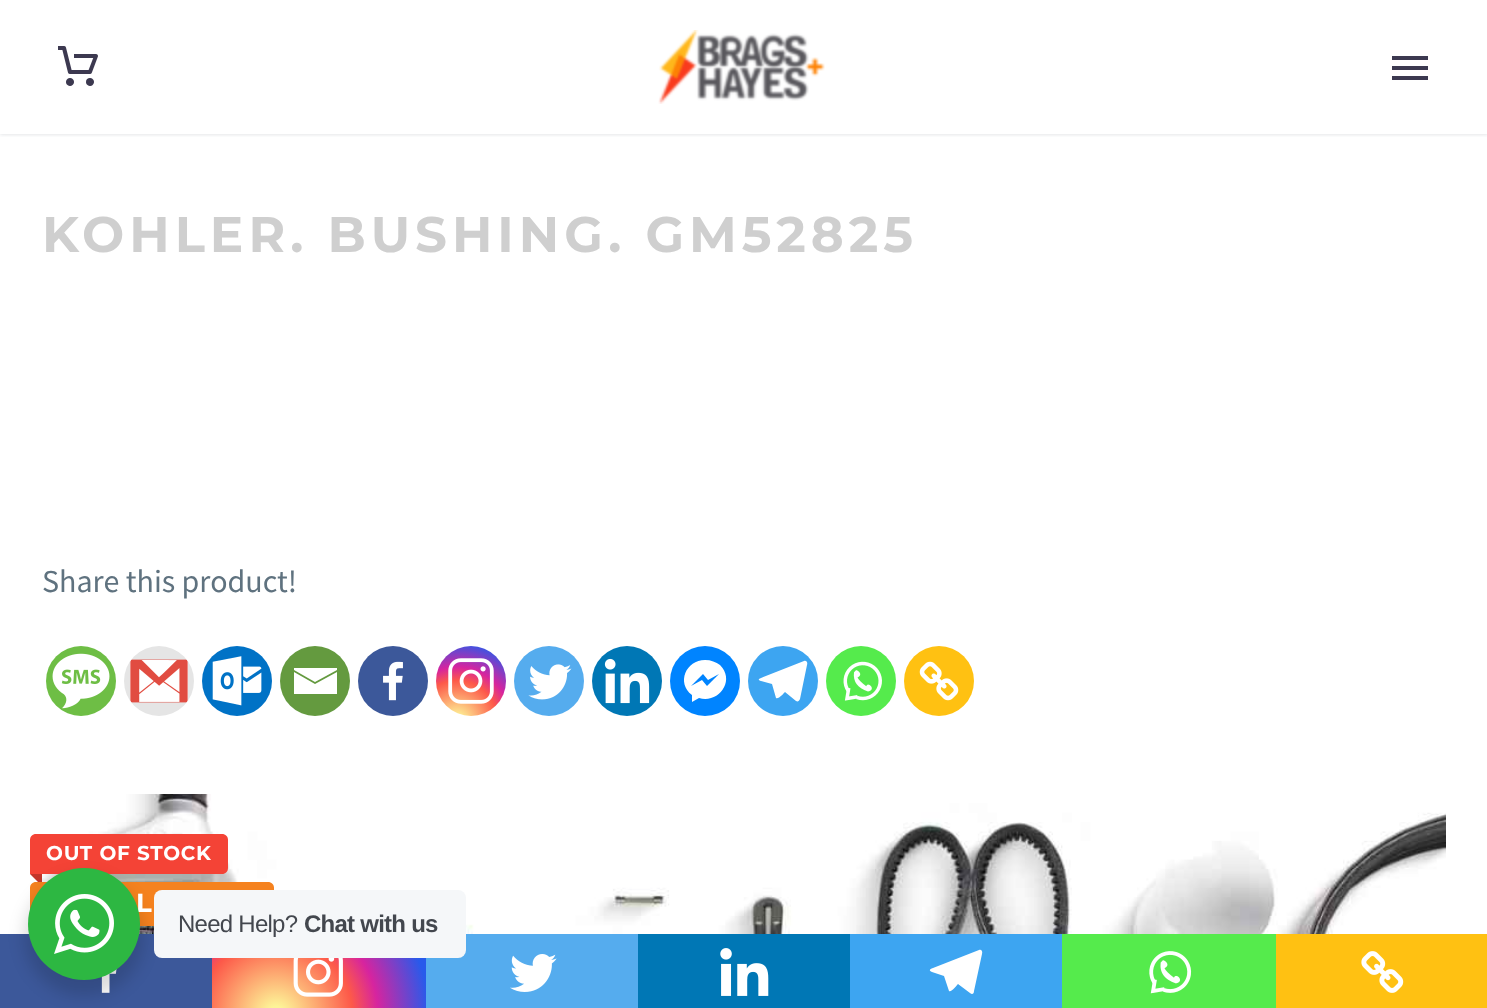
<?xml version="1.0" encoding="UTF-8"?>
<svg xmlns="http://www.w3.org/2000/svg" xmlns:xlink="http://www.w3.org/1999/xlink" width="1487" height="1008">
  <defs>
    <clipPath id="clip1"><rect x="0" y="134" width="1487" height="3" /></clipPath>
    <radialGradient id="g1" gradientUnits="userSpaceOnUse" cx="457" cy="721" r="90"><stop offset="0" stop-color="#fdf497" /><stop offset="0.05" stop-color="#fdf497" /><stop offset="0.45" stop-color="#fd5949" /><stop offset="0.6" stop-color="#d6249f" /><stop offset="0.9" stop-color="#285aeb" /></radialGradient>
    <radialGradient id="g2" gradientUnits="userSpaceOnUse" cx="276" cy="1015" r="170"><stop offset="0" stop-color="#fdf497" /><stop offset="0.05" stop-color="#fdf497" /><stop offset="0.45" stop-color="#fd5949" /><stop offset="0.6" stop-color="#d6249f" /><stop offset="0.9" stop-color="#285aeb" /></radialGradient>
  </defs>
  <rect width="100%" height="100%" fill="#ffffff" />
  <g clip-path="url(#clip1)">
    <rect width="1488" height="134" fill="#384554" fill-opacity="0.2" filter="blur(2px)" />
  </g>
  <image x="58" y="46" width="40" height="40" xlink:href="image1.png" />
  <image x="658" y="30" width="167" height="74" xlink:href="image2.png" />
  <rect x="1392" y="56" width="36" height="4" fill="#3c3950" />
  <rect x="1392" y="66" width="36" height="4" fill="#3c3950" />
  <rect x="1392" y="76" width="36" height="4" fill="#3c3950" />
  <circle cx="81" cy="681" r="35" fill="#6ebe45" />
  <image x="52" y="653" width="58" height="56" xlink:href="image3.png" />
  <circle cx="159" cy="681" r="35" fill="#e5e5e5" />
  <image x="130" y="659" width="58" height="44" xlink:href="image4.png" />
  <circle cx="237" cy="681" r="35" fill="#0072c6" />
  <image x="212" y="656" width="50" height="50" xlink:href="image5.png" />
  <circle cx="315" cy="681" r="35" fill="#649a3f" />
  <path d="M 292 668 h 45 v 2 l -22 12 l -21 -12 v -2 m 0 4 l 21 12 l 22 -12 v 22 h -43 v -22" fill="#ffffff" />
  <circle cx="393" cy="681" r="35" fill="#3c589a" />
  <image x="383" y="661" width="20" height="40" xlink:href="image6.png" />
  <circle cx="471" cy="681" r="35" fill="url(#g1)" />
  <image x="448" y="658" width="46" height="46" xlink:href="image7.png" />
  <circle cx="549" cy="681" r="35" fill="#55acee" />
  <image x="528" y="664" width="44" height="36" xlink:href="image8.png" />
  <circle cx="627" cy="681" r="35" fill="#0077b5" />
  <image x="604" y="658" width="46" height="46" xlink:href="image9.png" />
  <circle cx="705" cy="681" r="35" fill="#0084ff" />
  <path d="M 705 660 c -19 0 -29 23 -13 35 v 7 l 7 -4 c 19 6 37 -17 21 -33 c -4 -3 -9 -5 -15 -5 z m 2 26 l -5 -6 l -11 6 l 12 -12 l 5 6 l 11 -6 z" fill="#ffffff" />
  <circle cx="783" cy="681" r="35" fill="#3da5f1" />
  <path d="M 804 661 l -43 17 c -3 1 -3 2 0 3 l 11 3 l 4 14 c 2 2 8 -5 9 -6 l 11 9 c 2 1 3 0 4 -2 l 7 -34 c 1 -3 -1 -5 -3 -4 z" fill="#ffffff" />
  <circle cx="861" cy="681" r="35" fill="#55eb4c" />
  <image x="843" y="661" width="39" height="40" xlink:href="image10.png" />
  <circle cx="939" cy="681" r="35" fill="#ffc112" />
  <image x="919" y="661" width="40" height="40" xlink:href="image11.png" />
  <image x="42" y="794" width="1404" height="140" xlink:href="image12.png" />
  <path d="M 36 834 h 186 c 3.5 0 6 2.5 6 6 v 28 c 0 3.5 -2.5 6 -6 6 h -192 v -34 c 0 -3.5 2.5 -6 6 -6 z" fill="#f44336" />
  <path d="M 42 874 v 12 l -12 -12 z" fill="#c3362b" />
  <path d="M 36 882 h 232 c 3.5 0 6 2.5 6 6 v 32 c 0 3.5 -2.5 6 -6 6 h -238 v -38 c 0 -3.5 2.5 -6 6 -6 z" fill="#f5821f" />
  <rect y="934" width="212" height="74" fill="#3c589a" />
  <image x="101" y="969" width="16" height="24" xlink:href="image13.png" />
  <rect x="212" y="958" width="214" height="50" fill="url(#g2)" />
  <image x="293" y="958" width="50" height="39" xlink:href="image14.png" />
  <rect x="426" y="934" width="212" height="74" fill="#55acee" />
  <image x="510" y="954" width="47" height="38" xlink:href="image15.png" />
  <rect x="638" y="934" width="212" height="74" fill="#0077b5" />
  <image x="720" y="948" width="49" height="48" xlink:href="image16.png" />
  <rect x="850" y="934" width="212" height="74" fill="#3da5f1" />
  <path d="M 979 950 l -46 18 c -4 1 -4 3 -1 4 l 12 4 l 5 15 c 2 2 8 -6 9 -7 l 12 9 c 2 2 4 1 4 -2 l 8 -37 c 1 -3 -1 -5 -3 -4 z" fill="#ffffff" />
  <rect x="1062" y="934" width="214" height="74" fill="#55eb4c" />
  <image x="1149" y="951" width="43" height="43" xlink:href="image17.png" />
  <rect x="1276" y="934" width="211" height="74" fill="#ffc112" />
  <image x="1361" y="951" width="43" height="42" xlink:href="image18.png" />
  <rect x="24" y="876" width="120" height="120" rx="60" fill="#000000" fill-opacity="0.14" filter="blur(8px)" />
  <rect x="154" y="890" width="312" height="68" rx="8" fill="#f5f7f9" />
  <text x="42" y="252" style="font-family: Montserrat; font-size: 50px; font-weight: bold; letter-spacing: 5px; fill: #cfcfcf">KOHLER. BUSHING. GM52825</text>
  <text x="42" y="592" style="font-family: Source Sans Pro; font-size: 32px; fill: #5f727f">Share this product!</text>
  <text x="46" y="860" style="font-family: Montserrat; font-size: 20px; font-weight: bold; letter-spacing: 0.75px; fill: #ffffff">OUT OF STOCK</text>
  <text x="136" y="912" style="font-family: Montserrat; font-size: 26px; font-weight: bold; letter-spacing: 0.75px; fill: #ffffff">L</text>
  <circle cx="84" cy="924" r="56" fill="#2db742" />
  <image x="54" y="894" width="60" height="60" xlink:href="image19.png" />
  <text x="178" y="932" style="font-family: Liberation Sans; font-size: 24px; letter-spacing: -0.75px; fill: #43474e">Need Help?</text>
  <text x="304" y="932" style="font-family: Liberation Sans; font-size: 24px; font-weight: bold; letter-spacing: -0.75px; fill: #43474e">Chat with us</text>
</svg>
